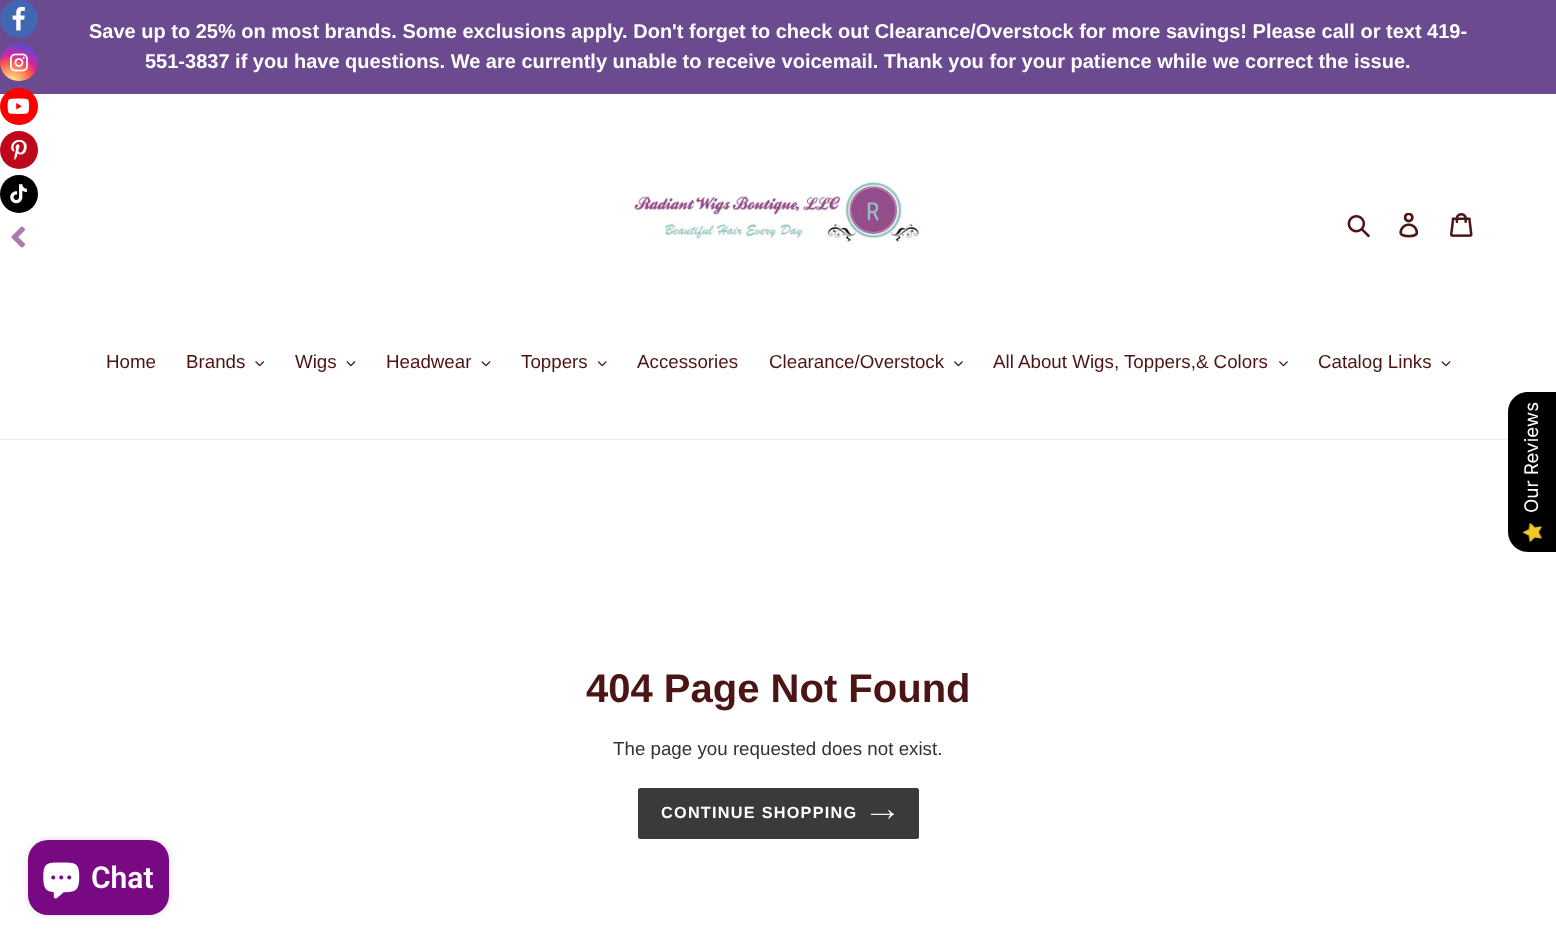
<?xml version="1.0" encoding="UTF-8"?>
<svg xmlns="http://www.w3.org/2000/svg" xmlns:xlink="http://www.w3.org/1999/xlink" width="1556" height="941">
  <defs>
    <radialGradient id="g1" gradientUnits="userSpaceOnUse" cx="11" cy="84" r="48"><stop offset="0" stop-color="#fdf497" /><stop offset="0.05" stop-color="#fdf497" /><stop offset="0.45" stop-color="#fd5949" /><stop offset="0.6" stop-color="#d6249f" /><stop offset="0.95" stop-color="#285aeb" /></radialGradient>
  </defs>
  <rect width="100%" height="100%" fill="#ffffff" />
  <rect width="1556" height="94" fill="#6b4a8f" />
  <circle cx="19" cy="19" r="19" fill="#4267b2" />
  <image x="12" y="6" width="13" height="25" xlink:href="image1.png" />
  <rect y="44" width="38" height="37" rx="18.5" fill="url(#g1)" />
  <image x="10" y="53" width="18" height="19" xlink:href="image2.png" />
  <rect y="88" width="38" height="37" rx="18.5" fill="#ff0000" />
  <image x="7" y="98" width="23" height="16" xlink:href="image3.png" />
  <circle cx="19" cy="150" r="19" fill="#bd081c" />
  <image x="11" y="139" width="16" height="21" xlink:href="image4.png" />
  <circle cx="19" cy="194" r="19" fill="#000000" />
  <image x="10" y="184" width="17" height="20" xlink:href="image5.png" />
  <image x="11" y="226" width="14" height="22" xlink:href="image6.png" />
  <image x="634" y="182" width="287" height="60" xlink:href="image7.png" />
  <image x="1347" y="215" width="23" height="23" xlink:href="image8.png" />
  <image x="1399" y="213" width="20" height="25" xlink:href="image9.png" />
  <image x="1450" y="213" width="23" height="24" xlink:href="image10.png" />
  <rect y="439" width="1508" height="1" fill="#ebebeb" />
  <image x="255" y="361" width="9" height="6" xlink:href="image11.png" />
  <image x="346" y="361" width="10" height="6" xlink:href="image12.png" />
  <image x="481" y="361" width="10" height="6" xlink:href="image12.png" />
  <image x="598" y="361" width="9" height="6" xlink:href="image13.png" />
  <image x="954" y="361" width="9" height="6" xlink:href="image14.png" />
  <image x="1279" y="361" width="9" height="6" xlink:href="image14.png" />
  <image x="1441" y="361" width="10" height="6" xlink:href="image12.png" />
  <path d="M 1508 532 v -120 c 0 -11 9 -20 20 -20 h 28 v 160 h -28 c -11 0 -20 -9 -20 -20 z" fill="#000000" />
  <image x="1522" y="523" width="20" height="19" xlink:href="image15.png" />
  <rect x="638" y="788" width="281" height="51" rx="2.5" fill="#3a3a3a" />
  <image x="870" y="809" width="24" height="10" xlink:href="image16.png" />
  <rect x="28" y="840" width="141" height="75" rx="20" fill="#000000" fill-opacity="0.15" filter="blur(3px)" />
  <rect x="28" y="840" width="141" height="75" rx="20" fill="#780983" />
  <image x="43" y="862" width="37" height="37" xlink:href="image17.png" />
  <text x="89" y="38" style="font-family: Liberation Sans; font-size: 20px; font-weight: bold; fill: #ffffff">Save up to 25% on most brands. Some exclusions apply. Don't forget to check out Clearance/Overstock for more savings! Please call or text 419-</text>
  <text x="145" y="68" style="font-family: Liberation Sans; font-size: 20px; font-weight: bold; fill: #ffffff">551-3837 if you have questions. We are currently unable to receive voicemail. Thank you for your patience while we correct the issue.</text>
  <text x="106" y="368" style="font-family: Liberation Sans; font-size: 18.75px; fill: #4c1515">Home</text>
  <text x="186" y="368" style="font-family: Liberation Sans; font-size: 18.75px; fill: #4c1515">Brands</text>
  <text x="295" y="368" style="font-family: Liberation Sans; font-size: 18.75px; fill: #4c1515">Wigs</text>
  <text x="386" y="368" style="font-family: Liberation Sans; font-size: 18.75px; fill: #4c1515">Headwear</text>
  <text x="521" y="368" style="font-family: Liberation Sans; font-size: 18.75px; fill: #4c1515">Toppers</text>
  <text x="637" y="368" style="font-family: Liberation Sans; font-size: 18.75px; fill: #4c1515">Accessories</text>
  <text x="769" y="368" style="font-family: Liberation Sans; font-size: 18.75px; fill: #4c1515">Clearance/Overstock</text>
  <text x="993" y="368" style="font-family: Liberation Sans; font-size: 18.75px; fill: #4c1515">All About Wigs, Toppers,&amp; Colors</text>
  <text x="1318" y="368" style="font-family: Liberation Sans; font-size: 18.75px; fill: #4c1515">Catalog Links</text>
  <text x="1538" y="513" transform="rotate(-90 1538 513)" style="font-family: Inter; font-size: 18.75px; fill: #ffffff">Our Reviews</text>
  <text x="586" y="702" style="font-family: Liberation Sans; font-size: 40px; font-weight: bold; fill: #4c1515">404 Page Not Found</text>
  <text x="613" y="755" style="font-family: Liberation Sans; font-size: 18.75px; fill: #333232">The page you requested does not exist.</text>
  <text x="661" y="818" style="font-family: Liberation Sans; font-size: 16.25px; font-weight: bold; letter-spacing: 1.25px; fill: #ffffff">CONTINUE SHOPPING</text>
  <text x="91" y="888" style="font-family: Roboto; font-size: 30px; font-weight: 600; fill: #ffffff">Chat</text>
</svg>
